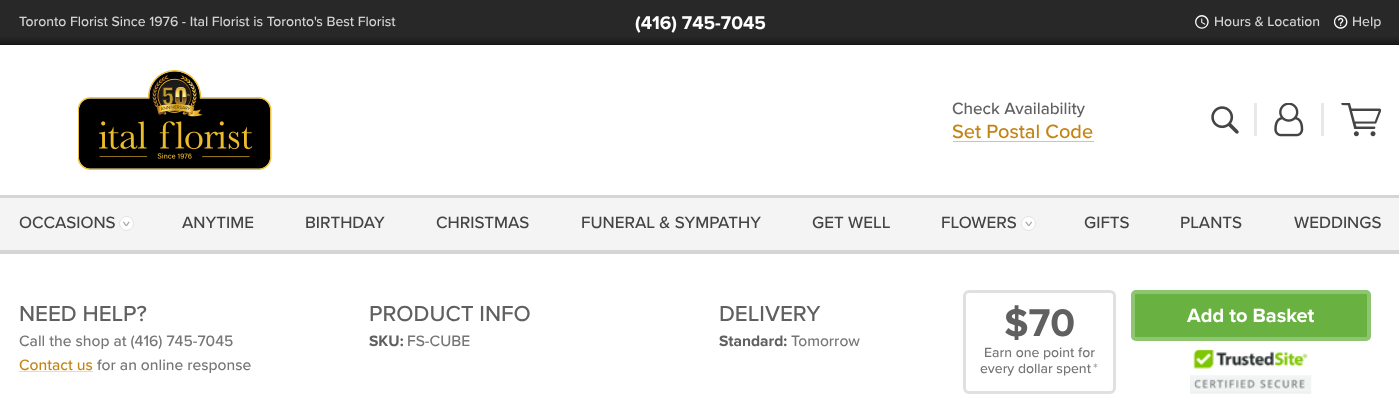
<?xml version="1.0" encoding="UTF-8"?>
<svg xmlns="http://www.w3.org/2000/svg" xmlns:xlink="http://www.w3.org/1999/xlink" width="1399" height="404">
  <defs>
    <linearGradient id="g1" gradientUnits="userSpaceOnUse" x1="700" y1="36" x2="700" y2="45"><stop offset="0" stop-color="#282828" /><stop offset="0.5" stop-color="#202020" /><stop offset="0.75" stop-color="#1c1c1c" /><stop offset="1" stop-color="#141414" /></linearGradient>
  </defs>
  <rect width="100%" height="100%" fill="#ffffff" />
  <rect width="1399" height="36" fill="#282828" />
  <image x="1195" y="15" width="14" height="14" xlink:href="image1.png" />
  <image x="1334" y="15" width="14" height="14" xlink:href="image2.png" />
  <rect y="36" width="1399" height="9" fill="url(#g1)" />
  <image x="78" y="70" width="194" height="100" xlink:href="image3.png" />
  <rect x="953" y="141" width="141" height="1" fill="#e2c28a" />
  <image x="1211" y="106" width="28" height="28" xlink:href="image4.png" />
  <rect x="1254" y="103" width="3" height="33" fill="#e8e8e8" />
  <image x="1274" y="103" width="30" height="34" xlink:href="image5.png" />
  <rect x="1321" y="103" width="3" height="33" fill="#e8e8e8" />
  <image x="1341" y="103" width="40" height="34" xlink:href="image6.png" />
  <rect y="195" width="1399" height="3" fill="#d5d5d5" />
  <rect y="198" width="1399" height="52" fill="#f4f4f4" />
  <circle cx="126.5" cy="223.5" r="7.5" fill="#ffffff" />
  <image x="123" y="221" width="7" height="5" xlink:href="image7.png" />
  <circle cx="126.5" cy="223.5" r="7" fill="none" stroke="#d5d5d5" stroke-opacity="0.75" />
  <circle cx="1028.5" cy="223.5" r="7.5" fill="#ffffff" />
  <image x="1025" y="221" width="7" height="5" xlink:href="image8.png" />
  <circle cx="1028.5" cy="223.5" r="7" fill="none" stroke="#d5d5d5" stroke-opacity="0.75" />
  <rect y="250" width="1399" height="4" fill="#d5d5d5" />
  <rect x="19" y="371" width="74" height="1" fill="#eddab9" />
  <rect x="964.5" y="291.5" width="150" height="101" rx="4.5" fill="none" stroke="#e0e0e0" stroke-width="3" />
  <rect x="1131" y="290" width="240" height="51" rx="5" fill="#69b241" />
  <rect x="1133" y="292" width="236" height="47" rx="3" fill="none" stroke="#ffffff" stroke-opacity="0.25" stroke-width="4" />
  <image x="1190" y="349" width="122" height="45" xlink:href="image9.png" />
  <text x="19" y="26" style="font-family: Proxima Nova; font-size: 14px; font-weight: 500; fill: #d4d4d4">Toronto Florist Since 1976 - Ital Florist is Toronto's Best Florist</text>
  <text x="635" y="29" style="font-family: Proxima Nova; font-size: 19px; font-weight: bold; fill: #ffffff">(416) 745-7045</text>
  <text x="1214" y="26" style="font-family: Proxima Nova; font-size: 14px; font-weight: 500; fill: #d4d4d4">Hours &amp; Location</text>
  <text x="1352" y="26" style="font-family: Proxima Nova; font-size: 14px; font-weight: 500; fill: #d4d4d4">Help</text>
  <text x="952" y="114" style="font-family: Proxima Nova; font-size: 17px; font-weight: 500; fill: #606060">Check Availability</text>
  <text x="952" y="138" style="font-family: Proxima Nova; font-size: 20px; font-weight: 500; fill: #c48414">Set Postal Code</text>
  <text x="19" y="228" style="font-family: Proxima Nova; font-size: 17px; font-weight: 500; fill: #444444">OCCASIONS</text>
  <text x="182" y="228" style="font-family: Proxima Nova; font-size: 17px; font-weight: 500; fill: #444444">ANYTIME</text>
  <text x="305" y="228" style="font-family: Proxima Nova; font-size: 17px; font-weight: 500; fill: #444444">BIRTHDAY</text>
  <text x="436" y="228" style="font-family: Proxima Nova; font-size: 17px; font-weight: 500; fill: #444444">CHRISTMAS</text>
  <text x="581" y="228" style="font-family: Proxima Nova; font-size: 17px; font-weight: 500; fill: #444444">FUNERAL &amp; SYMPATHY</text>
  <text x="812" y="228" style="font-family: Proxima Nova; font-size: 17px; font-weight: 500; fill: #444444">GET WELL</text>
  <text x="941" y="228" style="font-family: Proxima Nova; font-size: 17px; font-weight: 500; fill: #444444">FLOWERS</text>
  <text x="1084" y="228" style="font-family: Proxima Nova; font-size: 17px; font-weight: 500; fill: #444444">GIFTS</text>
  <text x="1180" y="228" style="font-family: Proxima Nova; font-size: 17px; font-weight: 500; fill: #444444">PLANTS</text>
  <text x="1294" y="228" style="font-family: Proxima Nova; font-size: 17px; font-weight: 500; fill: #444444">WEDDINGS</text>
  <text x="19" y="321" style="font-family: Proxima Nova; font-size: 22.5px; font-weight: 500; fill: #606060">NEED HELP?</text>
  <text x="19" y="346" style="font-family: Proxima Nova; font-size: 15.6px; font-weight: 500; fill: #767676">Call the shop at (416) 745-7045</text>
  <text x="19" y="370" style="font-family: Proxima Nova; font-size: 15.6px; font-weight: 500; fill: #c48414">Contact us</text>
  <text x="97" y="370" style="font-family: Proxima Nova; font-size: 15.6px; font-weight: 500; fill: #767676">for an online response</text>
  <text x="369" y="321" style="font-family: Proxima Nova; font-size: 22.5px; font-weight: 500; fill: #606060">PRODUCT INFO</text>
  <text x="369" y="346" style="font-family: Proxima Nova; font-size: 15.6px; font-weight: bold; fill: #606060">SKU:</text>
  <text x="407" y="346" style="font-family: Proxima Nova; font-size: 15.6px; font-weight: 500; fill: #767676">FS-CUBE</text>
  <text x="719" y="321" style="font-family: Proxima Nova; font-size: 22.5px; font-weight: 500; fill: #606060">DELIVERY</text>
  <text x="719" y="346" style="font-family: Proxima Nova; font-size: 15.6px; font-weight: bold; fill: #606060">Standard:</text>
  <text x="791" y="346" style="font-family: Proxima Nova; font-size: 15.6px; font-weight: 500; fill: #767676">Tomorrow</text>
  <text x="1004" y="336" style="font-family: Proxima Nova; font-size: 40px; font-weight: bold; fill: #606060">$70</text>
  <text x="984" y="357" style="font-family: Proxima Nova; font-size: 14px; font-weight: 500; fill: #767676">Earn one point for</text>
  <text x="980" y="373" style="font-family: Proxima Nova; font-size: 14px; font-weight: 500; fill: #767676">every dollar spent</text>
  <text x="1093" y="373" style="font-family: Proxima Nova; font-size: 14px; font-weight: 500; fill: #a0a0a0">*</text>
  <text x="1187" y="322" style="font-family: Proxima Nova; font-size: 20px; font-weight: bold; fill: #ffffff">Add to Basket</text>
</svg>
